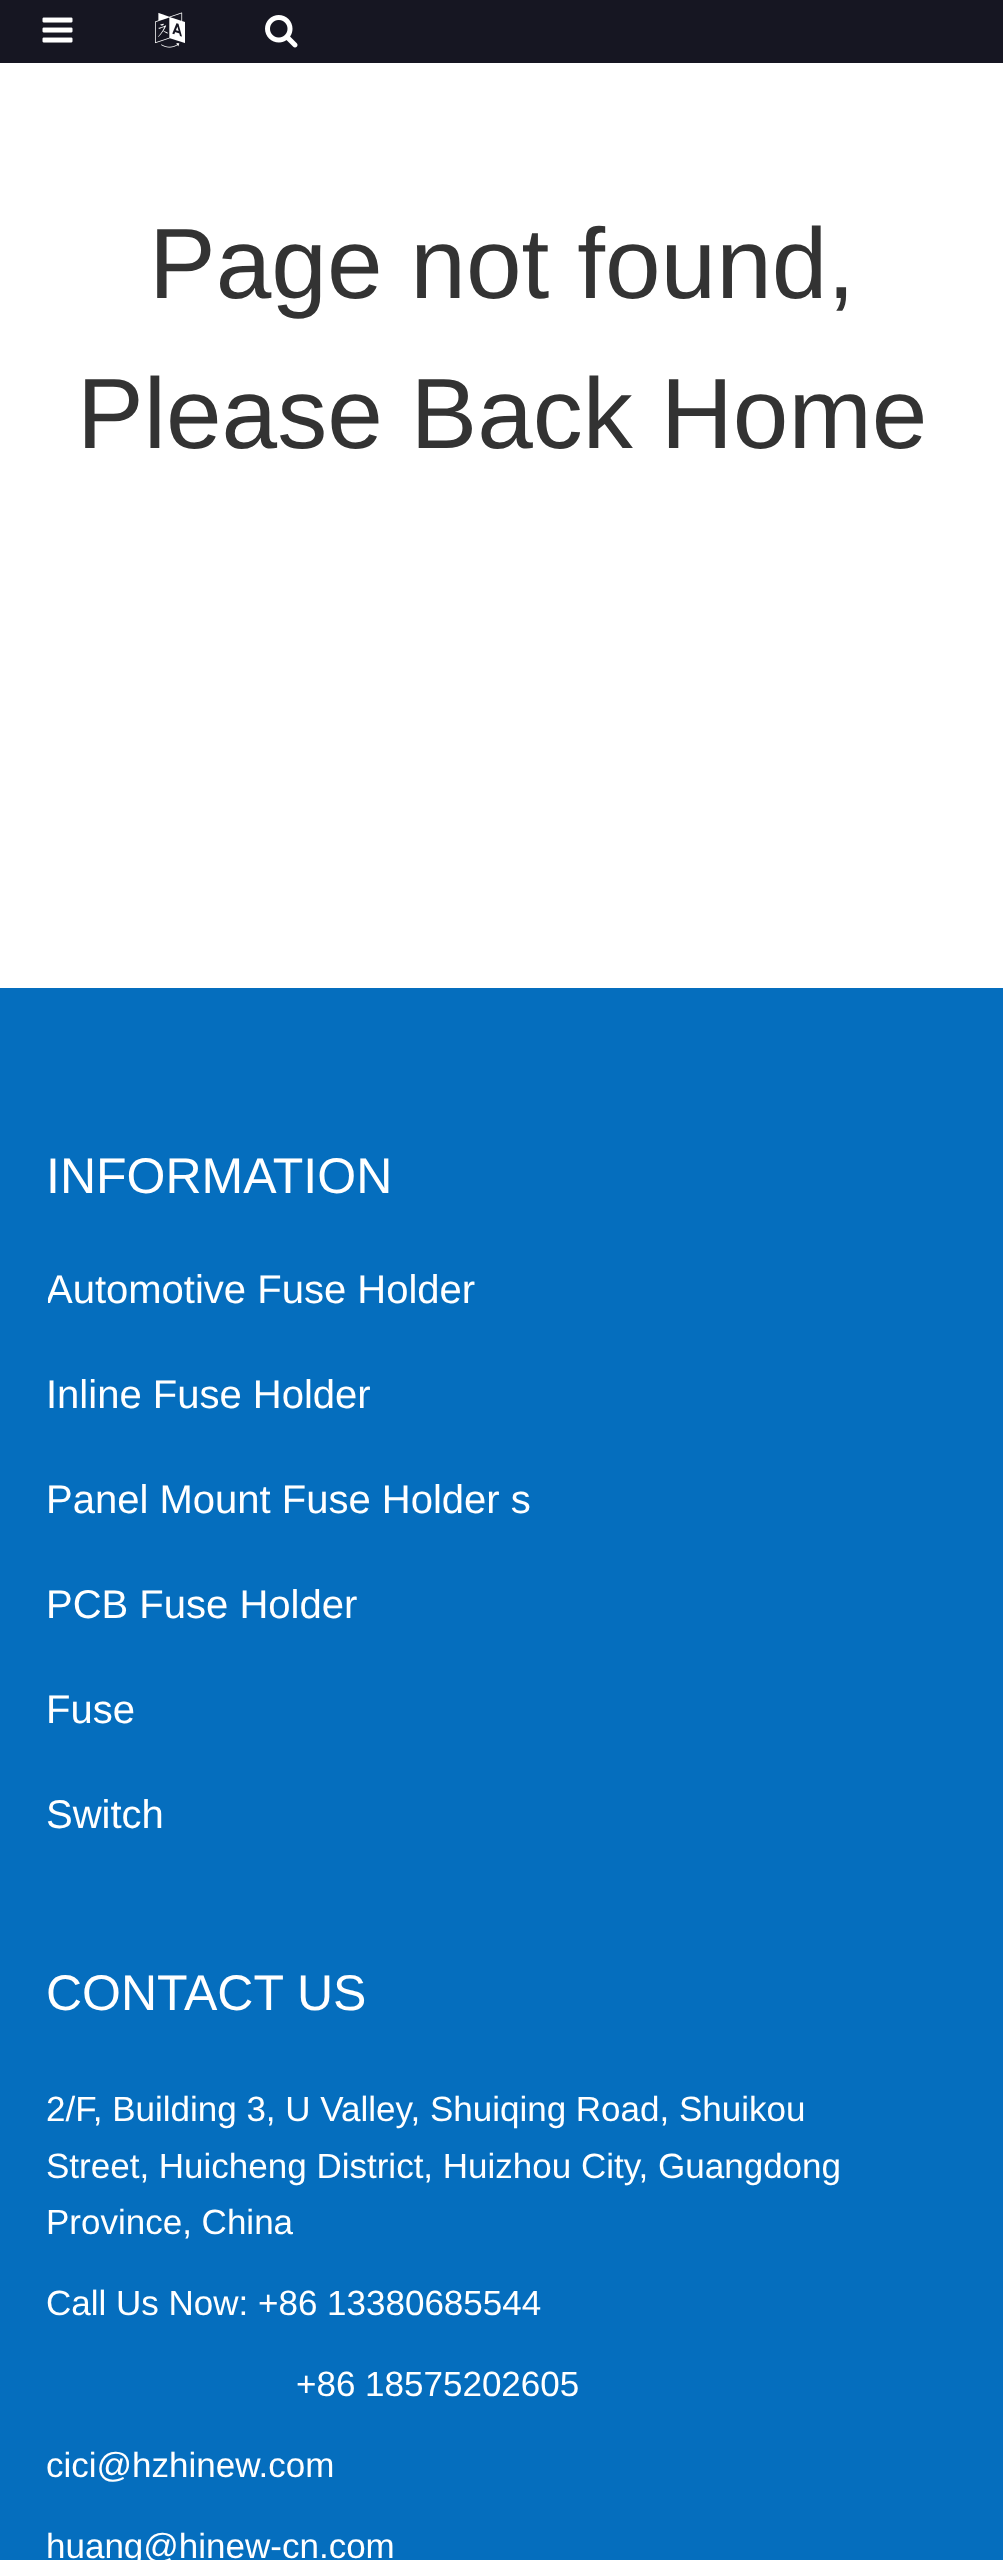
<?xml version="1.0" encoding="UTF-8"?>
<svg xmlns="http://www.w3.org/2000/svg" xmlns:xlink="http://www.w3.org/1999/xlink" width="1003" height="2560">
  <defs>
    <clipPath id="clip1"><rect x="48" y="1250" width="830" height="80" /></clipPath>
  </defs>
  <rect width="100%" height="100%" fill="#ffffff" />
  <rect width="1003" height="63" fill="#161622" />
  <image x="42" y="17" width="31" height="26" xlink:href="image1.png" />
  <image x="155" y="12" width="30" height="36" xlink:href="image2.png" />
  <image x="265" y="15" width="33" height="33" xlink:href="image3.png" />
  <rect y="988" width="1003" height="1572" fill="#056ebe" />
  <text x="149" y="298" style="font-family: Liberation Sans; font-size: 100px; fill: #333333">Page not found,</text>
  <text x="77" y="448" style="font-family: Liberation Sans; font-size: 100px; fill: #333333">Please Back Home</text>
  <text x="46" y="1193" style="font-family: Liberation Sans; font-size: 50px; fill: #ffffff">INFORMATION</text>
  <g clip-path="url(#clip1)">
    <text x="46" y="1303" style="font-family: Liberation Sans; font-size: 40px; fill: #ffffff">Automotive Fuse Holder</text>
  </g>
  <text x="46" y="1408" style="font-family: Liberation Sans; font-size: 40px; fill: #ffffff">Inline Fuse Holder</text>
  <text x="46" y="1513" style="font-family: Liberation Sans; font-size: 40px; fill: #ffffff">Panel Mount Fuse Holder s</text>
  <text x="46" y="1618" style="font-family: Liberation Sans; font-size: 40px; fill: #ffffff">PCB Fuse Holder</text>
  <text x="46" y="1723" style="font-family: Liberation Sans; font-size: 40px; fill: #ffffff">Fuse</text>
  <text x="46" y="1828" style="font-family: Liberation Sans; font-size: 40px; fill: #ffffff">Switch</text>
  <text x="46" y="2010" style="font-family: Liberation Sans; font-size: 50px; fill: #ffffff">CONTACT US</text>
  <text x="46" y="2121" style="font-family: Liberation Sans; font-size: 35px; fill: #ffffff">2/F, Building 3, U Valley, Shuiqing Road, Shuikou</text>
  <text x="46" y="2178" style="font-family: Liberation Sans; font-size: 35px; fill: #ffffff">Street, Huicheng District, Huizhou City, Guangdong</text>
  <text x="46" y="2234" style="font-family: Liberation Sans; font-size: 35px; fill: #ffffff">Province, China</text>
  <text x="46" y="2315" style="font-family: Liberation Sans; font-size: 35px; fill: #ffffff">Call Us Now: +86 13380685544</text>
  <text x="296" y="2396" style="font-family: Liberation Sans; font-size: 35px; fill: #ffffff">+86 18575202605</text>
  <text x="46" y="2477" style="font-family: Liberation Sans; font-size: 35px; fill: #ffffff">cici@hzhinew.com</text>
  <text x="46" y="2558" style="font-family: Liberation Sans; font-size: 35px; fill: #ffffff">huang@hinew-cn.com</text>
</svg>
